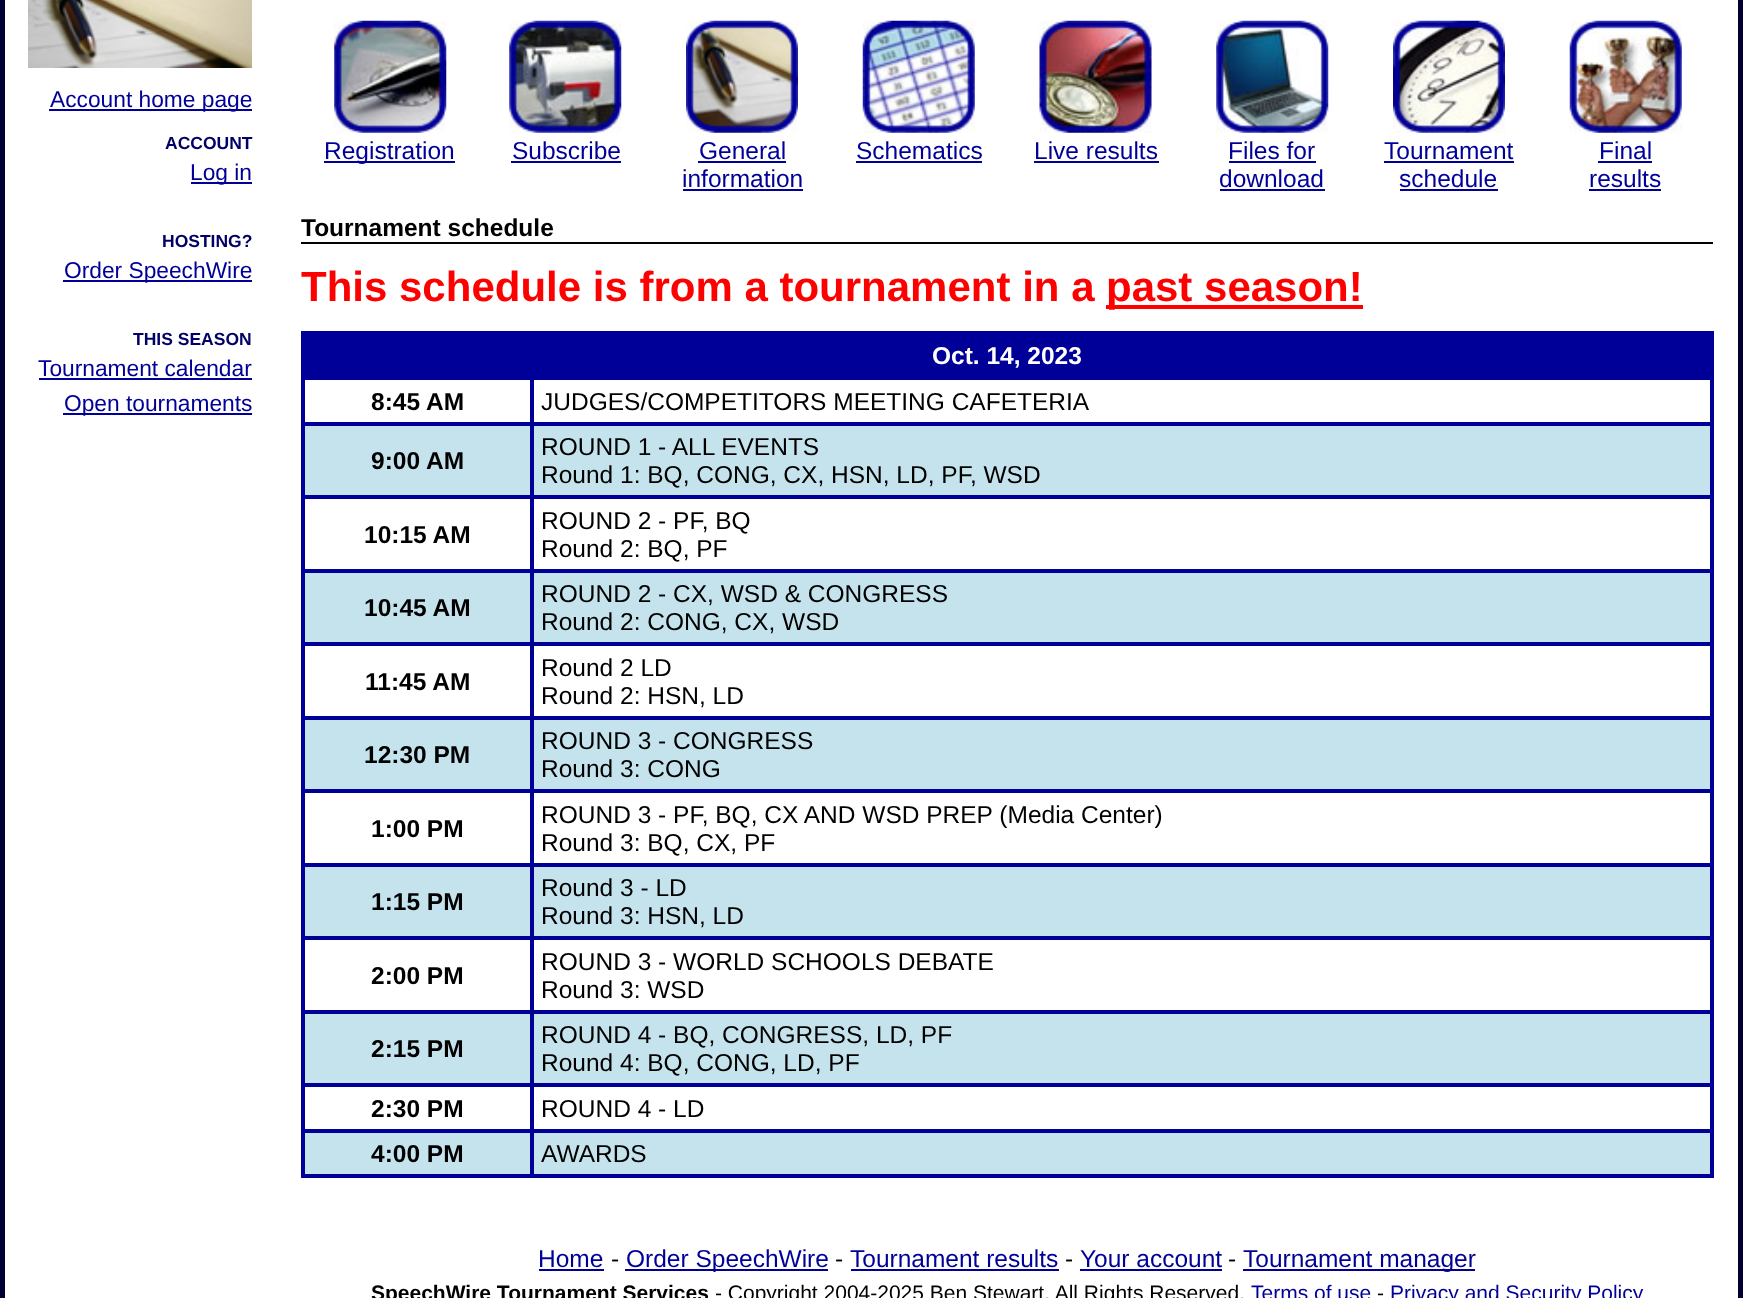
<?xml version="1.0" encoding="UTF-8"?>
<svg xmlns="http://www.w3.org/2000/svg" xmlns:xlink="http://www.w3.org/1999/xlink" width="1743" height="1298">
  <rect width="100%" height="100%" fill="#000033" />
  <rect x="5" width="1733" height="1298" fill="#ffffff" />
  <image x="28" y="0" width="224" height="68" xlink:href="image1.png" />
  <rect x="49" y="109" width="203" height="2" fill="#000099" />
  <rect x="191" y="182" width="61" height="2" fill="#000099" />
  <rect x="63" y="280" width="189" height="2" fill="#000099" />
  <rect x="39" y="378" width="213" height="2" fill="#000099" />
  <rect x="63" y="413" width="189" height="2" fill="#000099" />
  <image x="334" y="20" width="113" height="113" xlink:href="image2.png" />
  <image x="509" y="20" width="113" height="113" xlink:href="image3.png" />
  <image x="686" y="20" width="112" height="113" xlink:href="image4.png" />
  <image x="862" y="20" width="113" height="113" xlink:href="image5.png" />
  <image x="1039" y="20" width="113" height="113" xlink:href="image6.png" />
  <image x="1216" y="20" width="113" height="113" xlink:href="image7.png" />
  <image x="1393" y="20" width="112" height="113" xlink:href="image8.png" />
  <image x="1569" y="20" width="113" height="113" xlink:href="image9.png" />
  <rect x="324" y="161" width="131" height="2" fill="#000099" />
  <rect x="511" y="161" width="110" height="2" fill="#000099" />
  <rect x="698" y="161" width="88" height="2" fill="#000099" />
  <rect x="683" y="189" width="120" height="2" fill="#000099" />
  <rect x="856" y="161" width="126" height="2" fill="#000099" />
  <rect x="1034" y="161" width="125" height="2" fill="#000099" />
  <rect x="1229" y="161" width="87" height="2" fill="#000099" />
  <rect x="1220" y="189" width="105" height="2" fill="#000099" />
  <rect x="1384" y="161" width="130" height="2" fill="#000099" />
  <rect x="1400" y="189" width="98" height="2" fill="#000099" />
  <rect x="1598" y="161" width="54" height="2" fill="#000099" />
  <rect x="1589" y="189" width="72" height="2" fill="#000099" />
  <rect x="301" y="242" width="1412" height="2" fill="#000000" />
  <rect x="1106" y="305" width="257" height="4" fill="#ff0000" />
  <rect x="301" y="331" width="1412" height="4" fill="#000099" />
  <rect x="1710" y="331" width="4" height="847" fill="#000099" />
  <rect x="301" y="1174" width="1412" height="4" fill="#000099" />
  <rect x="301" y="331" width="4" height="847" fill="#000099" />
  <rect x="305" y="335" width="1405" height="41" fill="#000099" />
  <rect x="530" y="376" width="1183" height="4" fill="#000099" />
  <rect x="530" y="422" width="1183" height="4" fill="#000099" />
  <rect x="305" y="426" width="1405" height="69" fill="#c5e3ed" />
  <rect x="530" y="495" width="1183" height="4" fill="#000099" />
  <rect x="530" y="569" width="1183" height="4" fill="#000099" />
  <rect x="305" y="573" width="1405" height="69" fill="#c5e3ed" />
  <rect x="530" y="642" width="1183" height="4" fill="#000099" />
  <rect x="530" y="716" width="1183" height="4" fill="#000099" />
  <rect x="305" y="720" width="1405" height="69" fill="#c5e3ed" />
  <rect x="530" y="789" width="1183" height="4" fill="#000099" />
  <rect x="530" y="863" width="1183" height="4" fill="#000099" />
  <rect x="305" y="867" width="1405" height="69" fill="#c5e3ed" />
  <rect x="530" y="936" width="1183" height="4" fill="#000099" />
  <rect x="530" y="1010" width="1183" height="4" fill="#000099" />
  <rect x="305" y="1014" width="1405" height="69" fill="#c5e3ed" />
  <rect x="530" y="1083" width="1183" height="4" fill="#000099" />
  <rect x="530" y="1129" width="1183" height="4" fill="#000099" />
  <rect x="305" y="1133" width="1405" height="41" fill="#c5e3ed" />
  <rect x="530" y="1129" width="4" height="49" fill="#000099" />
  <rect x="301" y="1129" width="233" height="4" fill="#000099" />
  <rect x="530" y="1083" width="4" height="49" fill="#000099" />
  <rect x="301" y="1083" width="233" height="4" fill="#000099" />
  <rect x="530" y="1010" width="4" height="77" fill="#000099" />
  <rect x="301" y="1010" width="233" height="4" fill="#000099" />
  <rect x="530" y="936" width="4" height="77" fill="#000099" />
  <rect x="301" y="936" width="233" height="4" fill="#000099" />
  <rect x="530" y="863" width="4" height="77" fill="#000099" />
  <rect x="301" y="863" width="233" height="4" fill="#000099" />
  <rect x="530" y="789" width="4" height="77" fill="#000099" />
  <rect x="301" y="789" width="233" height="4" fill="#000099" />
  <rect x="530" y="716" width="4" height="77" fill="#000099" />
  <rect x="301" y="716" width="233" height="4" fill="#000099" />
  <rect x="530" y="642" width="4" height="77" fill="#000099" />
  <rect x="301" y="642" width="233" height="4" fill="#000099" />
  <rect x="530" y="569" width="4" height="77" fill="#000099" />
  <rect x="301" y="569" width="233" height="4" fill="#000099" />
  <rect x="530" y="495" width="4" height="77" fill="#000099" />
  <rect x="301" y="495" width="233" height="4" fill="#000099" />
  <rect x="530" y="422" width="4" height="77" fill="#000099" />
  <rect x="301" y="422" width="233" height="4" fill="#000099" />
  <rect x="530" y="376" width="4" height="49" fill="#000099" />
  <rect x="301" y="376" width="233" height="4" fill="#000099" />
  <rect x="539" y="1269" width="65" height="2" fill="#000099" />
  <rect x="625" y="1269" width="203" height="2" fill="#000099" />
  <rect x="851" y="1269" width="208" height="2" fill="#000099" />
  <rect x="1080" y="1269" width="142" height="2" fill="#000099" />
  <rect x="1243" y="1269" width="232" height="2" fill="#000099" />
  <text x="50" y="107" style="font-family: Liberation Sans; font-size: 22.75px; fill: #000099">Account home page</text>
  <text x="165" y="149" style="font-family: Liberation Sans; font-size: 17.5px; font-weight: bold; fill: #000066">ACCOUNT</text>
  <text x="190" y="180" style="font-family: Liberation Sans; font-size: 22.75px; fill: #000099">Log in</text>
  <text x="162" y="247" style="font-family: Liberation Sans; font-size: 17.5px; font-weight: bold; fill: #000066">HOSTING?</text>
  <text x="64" y="278" style="font-family: Liberation Sans; font-size: 22.75px; fill: #000099">Order SpeechWire</text>
  <text x="133" y="345" style="font-family: Liberation Sans; font-size: 17.5px; font-weight: bold; fill: #000066">THIS SEASON</text>
  <text x="38" y="376" style="font-family: Liberation Sans; font-size: 22.75px; fill: #000099">Tournament calendar</text>
  <text x="64" y="411" style="font-family: Liberation Sans; font-size: 22.75px; fill: #000099">Open tournaments</text>
  <text x="324" y="159" style="font-family: Liberation Sans; font-size: 24.5px; fill: #000099">Registration</text>
  <text x="512" y="159" style="font-family: Liberation Sans; font-size: 24.5px; fill: #000099">Subscribe</text>
  <text x="699" y="159" style="font-family: Liberation Sans; font-size: 24.5px; fill: #000099">General</text>
  <text x="682" y="187" style="font-family: Liberation Sans; font-size: 24.5px; fill: #000099">information</text>
  <text x="856" y="159" style="font-family: Liberation Sans; font-size: 24.5px; fill: #000099">Schematics</text>
  <text x="1034" y="159" style="font-family: Liberation Sans; font-size: 24.5px; fill: #000099">Live results</text>
  <text x="1228" y="159" style="font-family: Liberation Sans; font-size: 24.5px; fill: #000099">Files for</text>
  <text x="1219" y="187" style="font-family: Liberation Sans; font-size: 24.5px; fill: #000099">download</text>
  <text x="1384" y="159" style="font-family: Liberation Sans; font-size: 24.5px; fill: #000099">Tournament</text>
  <text x="1399" y="187" style="font-family: Liberation Sans; font-size: 24.5px; fill: #000099">schedule</text>
  <text x="1599" y="159" style="font-family: Liberation Sans; font-size: 24.5px; fill: #000099">Final</text>
  <text x="1589" y="187" style="font-family: Liberation Sans; font-size: 24.5px; fill: #000099">results</text>
  <text x="301" y="236" style="font-family: Liberation Sans; font-size: 24.5px; font-weight: bold; fill: #000000">Tournament schedule</text>
  <text x="301" y="301" style="font-family: Liberation Sans; font-size: 42px; font-weight: bold; fill: #ff0000">This schedule is from a tournament in a</text>
  <text x="1106" y="301" style="font-family: Liberation Sans; font-size: 42px; font-weight: bold; fill: #ff0000">past season!</text>
  <text x="932" y="364" style="font-family: Liberation Sans; font-size: 24.5px; font-weight: bold; fill: #ffffff">Oct. 14, 2023</text>
  <text x="371" y="410" style="font-family: Liberation Sans; font-size: 24.5px; font-weight: bold; fill: #000000">8:45 AM</text>
  <text x="541" y="410" style="font-family: Liberation Sans; font-size: 24.5px; fill: #000000">JUDGES/COMPETITORS MEETING CAFETERIA</text>
  <text x="371" y="469" style="font-family: Liberation Sans; font-size: 24.5px; font-weight: bold; fill: #000000">9:00 AM</text>
  <text x="541" y="455" style="font-family: Liberation Sans; font-size: 24.5px; fill: #000000">ROUND 1 - ALL EVENTS</text>
  <text x="541" y="483" style="font-family: Liberation Sans; font-size: 24.5px; fill: #000000">Round 1: BQ, CONG, CX, HSN, LD, PF, WSD</text>
  <text x="364" y="543" style="font-family: Liberation Sans; font-size: 24.5px; font-weight: bold; fill: #000000">10:15 AM</text>
  <text x="541" y="529" style="font-family: Liberation Sans; font-size: 24.5px; fill: #000000">ROUND 2 - PF, BQ</text>
  <text x="541" y="557" style="font-family: Liberation Sans; font-size: 24.5px; fill: #000000">Round 2: BQ, PF</text>
  <text x="364" y="616" style="font-family: Liberation Sans; font-size: 24.5px; font-weight: bold; fill: #000000">10:45 AM</text>
  <text x="541" y="602" style="font-family: Liberation Sans; font-size: 24.5px; fill: #000000">ROUND 2 - CX, WSD &amp; CONGRESS</text>
  <text x="541" y="630" style="font-family: Liberation Sans; font-size: 24.5px; fill: #000000">Round 2: CONG, CX, WSD</text>
  <text x="365" y="690" style="font-family: Liberation Sans; font-size: 24.5px; font-weight: bold; fill: #000000">11:45 AM</text>
  <text x="541" y="676" style="font-family: Liberation Sans; font-size: 24.5px; fill: #000000">Round 2 LD</text>
  <text x="541" y="704" style="font-family: Liberation Sans; font-size: 24.5px; fill: #000000">Round 2: HSN, LD</text>
  <text x="364" y="763" style="font-family: Liberation Sans; font-size: 24.5px; font-weight: bold; fill: #000000">12:30 PM</text>
  <text x="541" y="749" style="font-family: Liberation Sans; font-size: 24.5px; fill: #000000">ROUND 3 - CONGRESS</text>
  <text x="541" y="777" style="font-family: Liberation Sans; font-size: 24.5px; fill: #000000">Round 3: CONG</text>
  <text x="371" y="837" style="font-family: Liberation Sans; font-size: 24.5px; font-weight: bold; fill: #000000">1:00 PM</text>
  <text x="541" y="823" style="font-family: Liberation Sans; font-size: 24.5px; fill: #000000">ROUND 3 - PF, BQ, CX AND WSD PREP (Media Center)</text>
  <text x="541" y="851" style="font-family: Liberation Sans; font-size: 24.5px; fill: #000000">Round 3: BQ, CX, PF</text>
  <text x="371" y="910" style="font-family: Liberation Sans; font-size: 24.5px; font-weight: bold; fill: #000000">1:15 PM</text>
  <text x="541" y="896" style="font-family: Liberation Sans; font-size: 24.5px; fill: #000000">Round 3 - LD</text>
  <text x="541" y="924" style="font-family: Liberation Sans; font-size: 24.5px; fill: #000000">Round 3: HSN, LD</text>
  <text x="371" y="984" style="font-family: Liberation Sans; font-size: 24.5px; font-weight: bold; fill: #000000">2:00 PM</text>
  <text x="541" y="970" style="font-family: Liberation Sans; font-size: 24.5px; fill: #000000">ROUND 3 - WORLD SCHOOLS DEBATE</text>
  <text x="541" y="998" style="font-family: Liberation Sans; font-size: 24.5px; fill: #000000">Round 3: WSD</text>
  <text x="371" y="1057" style="font-family: Liberation Sans; font-size: 24.5px; font-weight: bold; fill: #000000">2:15 PM</text>
  <text x="541" y="1043" style="font-family: Liberation Sans; font-size: 24.5px; fill: #000000">ROUND 4 - BQ, CONGRESS, LD, PF</text>
  <text x="541" y="1071" style="font-family: Liberation Sans; font-size: 24.5px; fill: #000000">Round 4: BQ, CONG, LD, PF</text>
  <text x="371" y="1117" style="font-family: Liberation Sans; font-size: 24.5px; font-weight: bold; fill: #000000">2:30 PM</text>
  <text x="541" y="1117" style="font-family: Liberation Sans; font-size: 24.5px; fill: #000000">ROUND 4 - LD</text>
  <text x="371" y="1162" style="font-family: Liberation Sans; font-size: 24.5px; font-weight: bold; fill: #000000">4:00 PM</text>
  <text x="541" y="1162" style="font-family: Liberation Sans; font-size: 24.5px; fill: #000000">AWARDS</text>
  <text x="538" y="1267" style="font-family: Liberation Sans; font-size: 24.5px; fill: #000099">Home</text>
  <text x="611" y="1267" style="font-family: Liberation Sans; font-size: 24.5px; fill: #000000">-</text>
  <text x="626" y="1267" style="font-family: Liberation Sans; font-size: 24.5px; fill: #000099">Order SpeechWire</text>
  <text x="835" y="1267" style="font-family: Liberation Sans; font-size: 24.5px; fill: #000000">-</text>
  <text x="850" y="1267" style="font-family: Liberation Sans; font-size: 24.5px; fill: #000099">Tournament results</text>
  <text x="1065" y="1267" style="font-family: Liberation Sans; font-size: 24.5px; fill: #000000">-</text>
  <text x="1080" y="1267" style="font-family: Liberation Sans; font-size: 24.5px; fill: #000099">Your account</text>
  <text x="1228" y="1267" style="font-family: Liberation Sans; font-size: 24.5px; fill: #000000">-</text>
  <text x="1243" y="1267" style="font-family: Liberation Sans; font-size: 24.5px; fill: #000099">Tournament manager</text>
  <text x="371" y="1300" style="font-family: Liberation Sans; font-size: 21px; font-weight: bold; fill: #000000">SpeechWire Tournament Services</text>
  <text x="715" y="1300" style="font-family: Liberation Sans; font-size: 21px; fill: #000000">- Copyright 2004-2025 Ben Stewart. All Rights Reserved.</text>
  <text x="1251" y="1300" style="font-family: Liberation Sans; font-size: 21px; fill: #000099">Terms of use</text>
  <text x="1377" y="1300" style="font-family: Liberation Sans; font-size: 21px; fill: #000000">-</text>
  <text x="1390" y="1300" style="font-family: Liberation Sans; font-size: 21px; fill: #000099">Privacy and Security Policy</text>
</svg>
